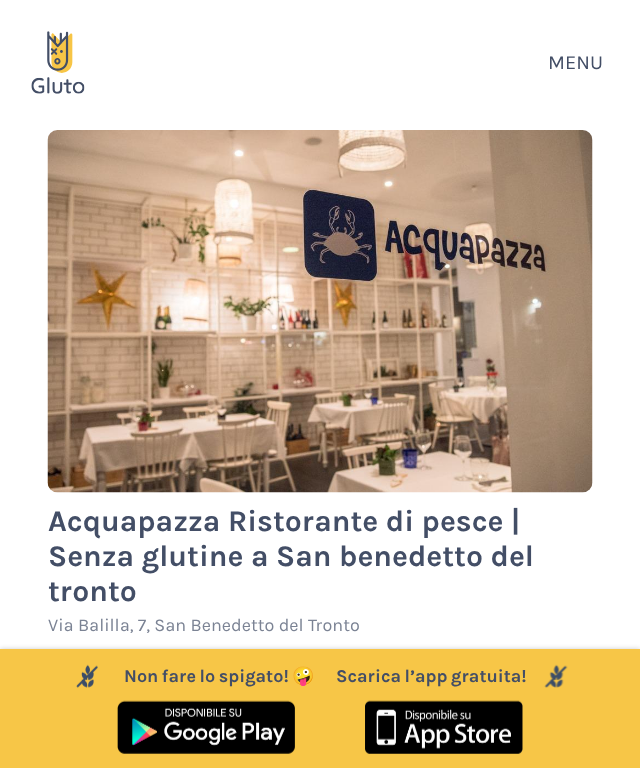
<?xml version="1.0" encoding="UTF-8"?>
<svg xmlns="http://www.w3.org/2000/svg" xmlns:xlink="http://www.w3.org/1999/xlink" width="640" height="768">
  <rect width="100%" height="100%" fill="#ffffff" />
  <image x="31" y="31" width="54" height="63" xlink:href="image1.png" />
  <image x="47" y="130" width="546" height="363" xlink:href="image2.png" />
  <rect y="649" width="640" height="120" fill="#000000" fill-opacity="0.2" filter="blur(2.5px)" />
  <rect y="649" width="640" height="119" fill="#f7c647" />
  <image x="76" y="664" width="22" height="24" xlink:href="image3.png" />
  <image x="544" y="664" width="24" height="24" xlink:href="image4.png" />
  <image x="117" y="700" width="178" height="54" xlink:href="image5.png" />
  <image x="365" y="700" width="158" height="54" xlink:href="image6.png" />
  <text x="548" y="69" style="font-family: Karla; font-size: 20px; fill: #434e66">MENU</text>
  <text x="48" y="531" style="font-family: Karla; font-size: 30px; font-weight: bold; fill: #434e66">Acquapazza Ristorante di pesce |</text>
  <text x="48" y="566" style="font-family: Karla; font-size: 30px; font-weight: bold; fill: #434e66">Senza glutine a San benedetto del</text>
  <text x="48" y="601" style="font-family: Karla; font-size: 30px; font-weight: bold; fill: #434e66">tronto</text>
  <text x="48" y="631" style="font-family: Karla; font-size: 18px; fill: #7b8394">Via Balilla, 7, San Benedetto del Tronto</text>
  <text x="124" y="682" word-spacing="-1" style="font-family: Karla; font-size: 18px; font-weight: bold; fill: #434e66">Non fare lo spigato!</text>
  <text x="292" y="682" style="font-family: Noto Color Emoji; font-size: 18px; fill: #434e66">🤪‍</text>
  <text x="336" y="682" word-spacing="-1" style="font-family: Karla; font-size: 18px; font-weight: bold; fill: #434e66">Scarica l’app gratuita!</text>
</svg>
